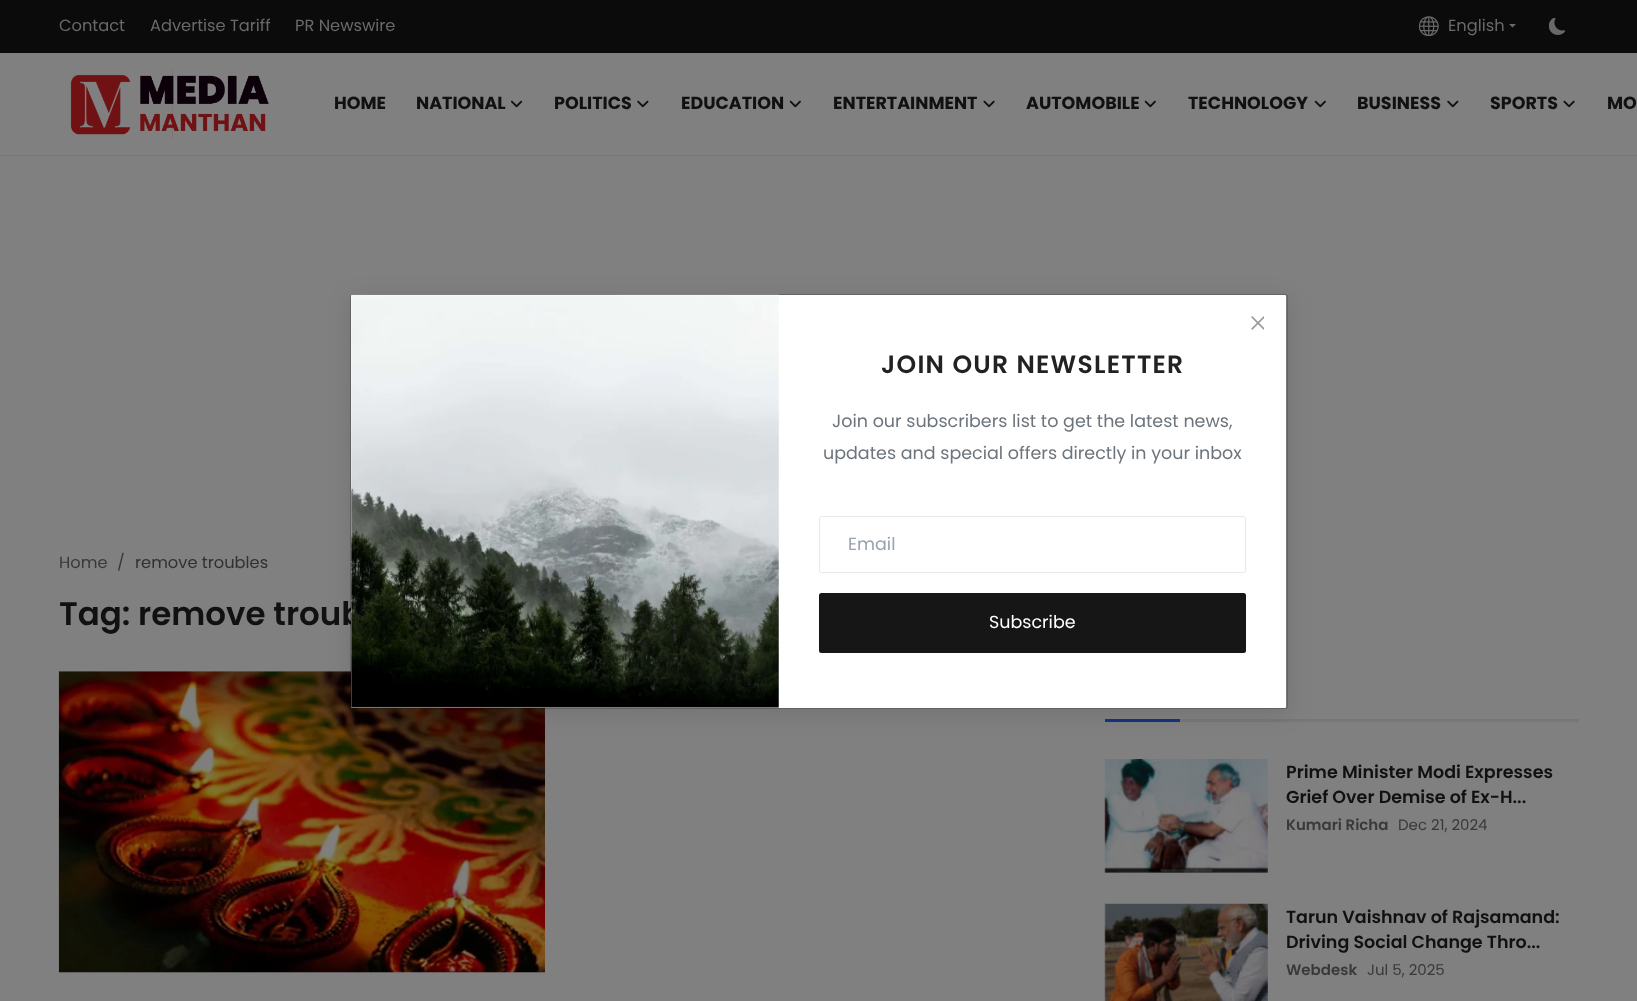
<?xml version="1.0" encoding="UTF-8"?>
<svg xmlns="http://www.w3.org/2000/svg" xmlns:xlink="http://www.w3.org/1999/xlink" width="1637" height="1001">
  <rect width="100%" height="100%" fill="#808080" />
  <rect width="1637" height="53" fill="#0b0b0b" />
  <image x="1419" y="16" width="20" height="20" xlink:href="image1.png" />
  <path d="M 1509 24 h 7 l -3.5 3.5 z" fill="#696969" />
  <image x="1549" y="18" width="17" height="17" xlink:href="image2.png" />
  <rect y="155" width="1637" height="1" fill="#767676" />
  <image x="70" y="68" width="199" height="71" xlink:href="image3.png" />
  <image x="511" y="100" width="12" height="8" xlink:href="image4.png" />
  <image x="637" y="100" width="12" height="8" xlink:href="image5.png" />
  <image x="789" y="100" width="12" height="8" xlink:href="image6.png" />
  <image x="983" y="100" width="12" height="8" xlink:href="image7.png" />
  <image x="1144" y="100" width="12" height="8" xlink:href="image6.png" />
  <image x="1314" y="100" width="12" height="8" xlink:href="image6.png" />
  <image x="1447" y="100" width="12" height="8" xlink:href="image5.png" />
  <image x="1563" y="100" width="12" height="8" xlink:href="image7.png" />
  <rect x="59" y="671" width="486" height="302" fill="#7d7d7d" />
  <image x="58" y="671" width="487" height="302" xlink:href="image10.png" />
  <rect x="1180" y="719" width="399" height="3" fill="#777777" />
  <rect x="1105" y="719" width="75" height="3" fill="#17337f" />
  <rect x="350" y="299" width="938" height="415" rx="2.5" fill="#000000" fill-opacity="0.1" filter="blur(12.5px)" />
  <rect x="1105" y="759" width="163" height="114" fill="#7d7d7d" />
  <image x="1104" y="759" width="164" height="114" xlink:href="image11.png" />
  <image x="1104" y="903" width="164" height="98" xlink:href="image12.png" />
  <text x="59" y="31" style="font-family: Poppins; font-size: 16.25px; fill: #696969">Contact</text>
  <text x="150" y="31" style="font-family: Poppins; font-size: 16.25px; fill: #696969">Advertise Tariff</text>
  <text x="295" y="31" style="font-family: Poppins; font-size: 16.25px; fill: #696969">PR Newswire</text>
  <text x="1448" y="31" style="font-family: Poppins; font-size: 16.25px; fill: #696969">English</text>
  <text x="334" y="109" style="font-family: Poppins; font-size: 17.5px; font-weight: bold; fill: #111111">HOME</text>
  <text x="416" y="109" style="font-family: Poppins; font-size: 17.5px; font-weight: bold; fill: #111111">NATIONAL</text>
  <text x="554" y="109" style="font-family: Poppins; font-size: 17.5px; font-weight: bold; fill: #111111">POLITICS</text>
  <text x="681" y="109" style="font-family: Poppins; font-size: 17.5px; font-weight: bold; fill: #111111">EDUCATION</text>
  <text x="833" y="109" style="font-family: Poppins; font-size: 17.5px; font-weight: bold; fill: #111111">ENTERTAINMENT</text>
  <text x="1026" y="109" style="font-family: Poppins; font-size: 17.5px; font-weight: bold; fill: #111111">AUTOMOBILE</text>
  <text x="1188" y="109" style="font-family: Poppins; font-size: 17.5px; font-weight: bold; fill: #111111">TECHNOLOGY</text>
  <text x="1357" y="109" style="font-family: Poppins; font-size: 17.5px; font-weight: bold; fill: #111111">BUSINESS</text>
  <text x="1490" y="109" style="font-family: Poppins; font-size: 17.5px; font-weight: bold; fill: #111111">SPORTS</text>
  <text x="1607" y="109" style="font-family: Poppins; font-size: 17.5px; font-weight: bold; fill: #111111">MO</text>
  <text x="59" y="568" style="font-family: Poppins; font-size: 16.25px; fill: #393939">Home</text>
  <text x="117" y="568" style="font-family: Poppins; font-size: 16.25px; fill: #363b3f">/</text>
  <text x="135" y="568" style="font-family: Poppins; font-size: 16.25px; fill: #303030">remove troubles</text>
  <text x="59" y="625" style="font-family: Poppins; font-size: 32.5px; font-weight: 600; fill: #111111">Tag: remove troub</text>
  <rect x="351" y="295" width="935" height="413" rx="1" fill="#ffffff" />
  <rect x="350.5" y="294.5" width="937" height="414" rx="2" fill="none" stroke="#000000" stroke-opacity="0.18" />
  <image x="1251" y="316" width="13" height="14" xlink:href="image9.png" />
  <rect x="819" y="593" width="427" height="60" rx="2.5" fill="#161616" />
  <text x="989" y="628" style="font-family: Poppins; font-size: 17.5px; fill: #ffffff">Subscribe</text>
  <rect x="819.5" y="516.5" width="426" height="56" rx="2" fill="none" stroke="#e6e8eb" />
  <text x="848" y="550" style="font-family: Poppins; font-size: 17.5px; fill: #9aa2aa">Email</text>
  <text x="823" y="459" style="font-family: Poppins; font-size: 17.5px; fill: #6c757d">updates and special offers directly in your inbox</text>
  <text x="832" y="427" style="font-family: Poppins; font-size: 17.5px; fill: #6c757d">Join our subscribers list to get the latest news,</text>
  <text x="881" y="373" style="font-family: Poppins; font-size: 25px; font-weight: 600; letter-spacing: 1.25px; fill: #222222">JOIN OUR NEWSLETTER</text>
  <image x="351" y="294" width="428" height="414" xlink:href="image8.png" />
  <text x="1286" y="778" style="font-family: Poppins; font-size: 17.5px; font-weight: 600; fill: #111111">Prime Minister Modi Expresses</text>
  <text x="1286" y="803" style="font-family: Poppins; font-size: 17.5px; font-weight: 600; fill: #111111">Grief Over Demise of Ex-H...</text>
  <text x="1286" y="830" style="font-family: Poppins; font-size: 15px; font-weight: 600; fill: #393939">Kumari Richa</text>
  <text x="1398" y="830" style="font-family: Poppins; font-size: 15px; fill: #393939">Dec 21, 2024</text>
  <text x="1286" y="923" style="font-family: Poppins; font-size: 17.5px; font-weight: 600; fill: #111111">Tarun Vaishnav of Rajsamand:</text>
  <text x="1286" y="948" style="font-family: Poppins; font-size: 17.5px; font-weight: 600; fill: #111111">Driving Social Change Thro...</text>
  <text x="1286" y="975" style="font-family: Poppins; font-size: 15px; font-weight: 600; fill: #393939">Webdesk</text>
  <text x="1367" y="975" style="font-family: Poppins; font-size: 15px; fill: #393939">Jul 5, 2025</text>
</svg>
